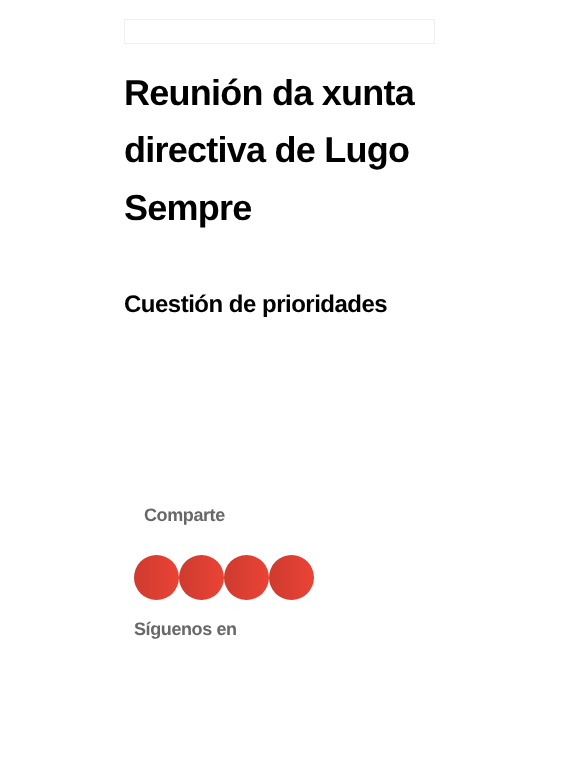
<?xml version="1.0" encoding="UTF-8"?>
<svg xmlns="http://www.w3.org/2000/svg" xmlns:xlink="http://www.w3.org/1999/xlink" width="572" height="772">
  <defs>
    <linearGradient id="g1" gradientUnits="userSpaceOnUse" x1="134" y1="578" x2="179" y2="578"><stop offset="0" stop-color="#000000" stop-opacity="0.12" /><stop offset="1" stop-color="#000000" stop-opacity="0" /></linearGradient>
    <linearGradient id="g2" gradientUnits="userSpaceOnUse" x1="179" y1="578" x2="224" y2="578"><stop offset="0" stop-color="#000000" stop-opacity="0.12" /><stop offset="1" stop-color="#000000" stop-opacity="0" /></linearGradient>
    <linearGradient id="g3" gradientUnits="userSpaceOnUse" x1="224" y1="578" x2="269" y2="578"><stop offset="0" stop-color="#000000" stop-opacity="0.12" /><stop offset="1" stop-color="#000000" stop-opacity="0" /></linearGradient>
    <linearGradient id="g4" gradientUnits="userSpaceOnUse" x1="269" y1="578" x2="314" y2="578"><stop offset="0" stop-color="#000000" stop-opacity="0.12" /><stop offset="1" stop-color="#000000" stop-opacity="0" /></linearGradient>
  </defs>
  <rect width="100%" height="100%" fill="#ffffff" />
  <rect x="124.5" y="19.5" width="310" height="24" fill="none" stroke="#f0f0f0" />
  <circle cx="156.5" cy="577.5" r="22.5" fill="#ea4335" />
  <circle cx="156.5" cy="577.5" r="22.5" fill="url(#g1)" />
  <circle cx="201.5" cy="577.5" r="22.5" fill="#ea4335" />
  <circle cx="201.5" cy="577.5" r="22.5" fill="url(#g2)" />
  <circle cx="246.5" cy="577.5" r="22.5" fill="#ea4335" />
  <circle cx="246.5" cy="577.5" r="22.5" fill="url(#g3)" />
  <circle cx="291.5" cy="577.5" r="22.5" fill="#ea4335" />
  <circle cx="291.5" cy="577.5" r="22.5" fill="url(#g4)" />
  <text x="124" y="105" style="font-family: Liberation Sans; font-size: 36px; font-weight: bold; letter-spacing: -0.75px; fill: #000000">Reunión da xunta</text>
  <text x="124" y="162" style="font-family: Liberation Sans; font-size: 36px; font-weight: bold; letter-spacing: -0.75px; fill: #000000">directiva de Lugo</text>
  <text x="124" y="220" style="font-family: Liberation Sans; font-size: 36px; font-weight: bold; letter-spacing: -0.75px; fill: #000000">Sempre</text>
  <text x="124" y="312" style="font-family: Liberation Sans; font-size: 24px; font-weight: bold; letter-spacing: -0.5px; fill: #000000">Cuestión de prioridades</text>
  <text x="144" y="521" style="font-family: Liberation Sans; font-size: 18px; font-weight: bold; letter-spacing: -0.4px; fill: #686868">Comparte</text>
  <text x="134" y="635" style="font-family: Liberation Sans; font-size: 18px; font-weight: bold; letter-spacing: -0.4px; fill: #686868">Síguenos en</text>
</svg>
